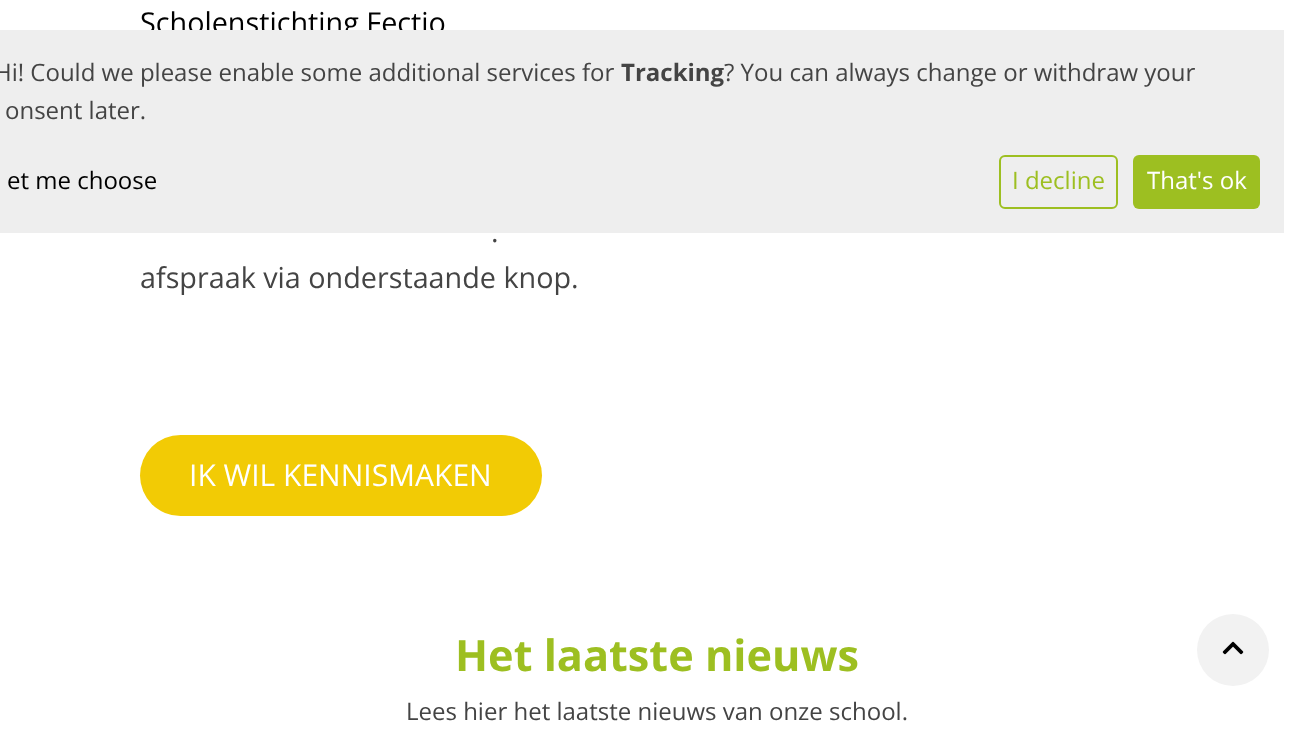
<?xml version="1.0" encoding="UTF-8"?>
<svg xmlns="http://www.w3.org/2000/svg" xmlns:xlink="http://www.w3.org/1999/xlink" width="1313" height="730">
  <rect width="100%" height="100%" fill="#ffffff" />
  <rect x="140" y="435" width="402" height="81" rx="40.5" fill="#f2cb05" />
  <circle cx="1233" cy="650" r="36" fill="#f2f2f2" />
  <image x="1222" y="641" width="22" height="14" xlink:href="image1.png" />
  <text x="140" y="33" style="font-family: Open Sans; font-size: 28.75px; fill: #000000">Scholenstichting Fectio</text>
  <text x="491" y="242" style="font-family: Open Sans; font-size: 28.75px; fill: #444444">.</text>
  <text x="140" y="288" style="font-family: Open Sans; font-size: 28.75px; fill: #444444">afspraak via onderstaande knop.</text>
  <text x="189" y="486" style="font-family: Open Sans; font-size: 30px; fill: #ffffff">IK WIL KENNISMAKEN</text>
  <text x="455" y="671" style="font-family: Open Sans; font-size: 43.25px; font-weight: bold; fill: #9dbf21">Het laatste nieuws</text>
  <text x="406" y="720" style="font-family: Open Sans; font-size: 24px; fill: #444444">Lees hier het laatste nieuws van onze school.</text>
  <rect y="30" width="1284" height="203" fill="#eeeeee" />
  <text x="-6" y="81" style="font-family: Open Sans; font-size: 24px; fill: #444444">Hi! Could we please enable some additional services for</text>
  <text x="621" y="81" style="font-family: Open Sans; font-size: 24px; font-weight: bold; fill: #444444">Tracking</text>
  <text x="724" y="81" style="font-family: Open Sans; font-size: 24px; fill: #444444">? You can always change or withdraw your</text>
  <text x="5" y="119" style="font-family: Open Sans; font-size: 24px; fill: #444444">onsent later.</text>
  <text x="7" y="189" style="font-family: Open Sans; font-size: 24px; fill: #000000">et me choose</text>
  <rect x="1000" y="156" width="117" height="52" rx="5" fill="none" stroke="#9dbf21" stroke-width="2" />
  <text x="1012" y="189" style="font-family: Open Sans; font-size: 24px; fill: #9dbf21">I decline</text>
  <rect x="1133" y="155" width="127" height="54" rx="6" fill="#9dbf21" />
  <text x="1147" y="189" style="font-family: Open Sans; font-size: 24px; fill: #ffffff">That's ok</text>
</svg>
